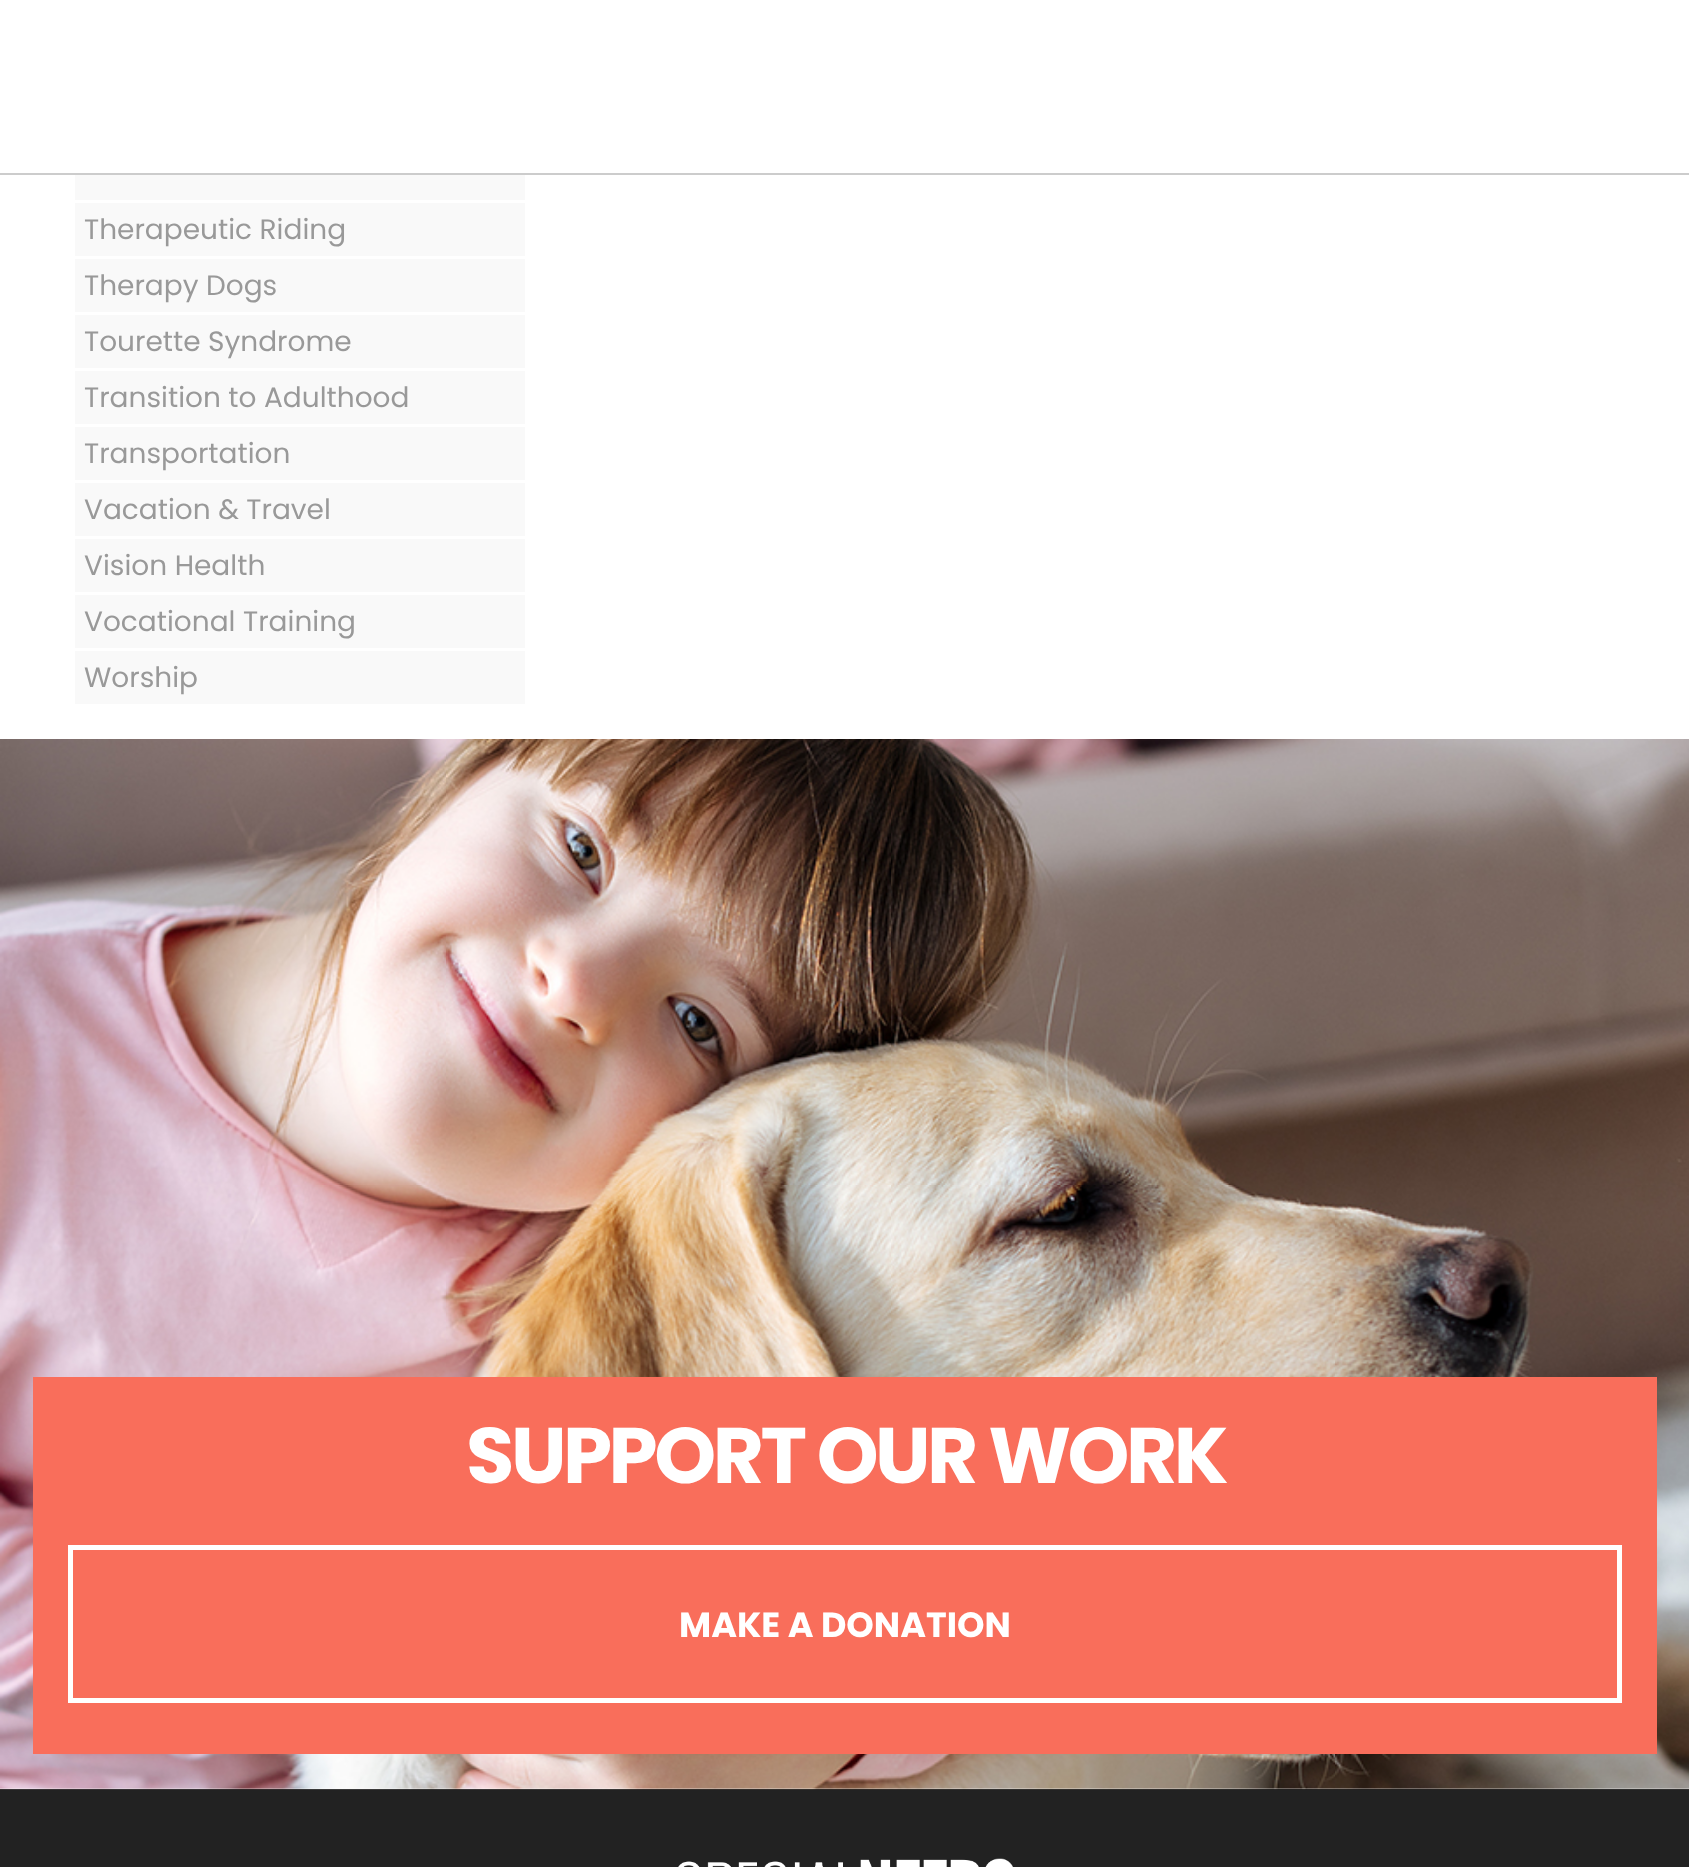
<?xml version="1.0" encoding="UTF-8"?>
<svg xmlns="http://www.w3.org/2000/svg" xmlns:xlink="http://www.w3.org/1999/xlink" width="1689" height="1867">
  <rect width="100%" height="100%" fill="#ffffff" />
  <rect y="173" width="1689" height="2" fill="#cccccc" />
  <rect x="75" y="175" width="450" height="25" fill="#f9f9f9" />
  <rect x="75" y="203" width="450" height="53" fill="#f9f9f9" />
  <rect x="75" y="259" width="450" height="53" fill="#f9f9f9" />
  <rect x="75" y="315" width="450" height="53" fill="#f9f9f9" />
  <rect x="75" y="371" width="450" height="53" fill="#f9f9f9" />
  <rect x="75" y="427" width="450" height="53" fill="#f9f9f9" />
  <rect x="75" y="483" width="450" height="53" fill="#f9f9f9" />
  <rect x="75" y="539" width="450" height="53" fill="#f9f9f9" />
  <rect x="75" y="595" width="450" height="53" fill="#f9f9f9" />
  <rect x="75" y="651" width="450" height="53" fill="#f9f9f9" />
  <rect y="1789" width="1689" height="78" fill="#222222" />
  <image x="0" y="739" width="1689" height="1051" xlink:href="image1.png" />
  <rect x="33" y="1377" width="1624" height="377" fill="#f96e5b" />
  <rect x="70.5" y="1547.5" width="1549" height="153" fill="none" stroke="#ffffff" stroke-width="5" />
  <image x="678" y="1858" width="335" height="9" xlink:href="image2.png" />
  <text x="84" y="239" style="font-family: Poppins; font-size: 28px; fill: #999999">Therapeutic Riding</text>
  <text x="84" y="295" style="font-family: Poppins; font-size: 28px; fill: #999999">Therapy Dogs</text>
  <text x="84" y="351" style="font-family: Poppins; font-size: 28px; fill: #999999">Tourette Syndrome</text>
  <text x="84" y="407" style="font-family: Poppins; font-size: 28px; fill: #999999">Transition to Adulthood</text>
  <text x="84" y="463" style="font-family: Poppins; font-size: 28px; fill: #999999">Transportation</text>
  <text x="84" y="519" style="font-family: Poppins; font-size: 28px; fill: #999999">Vacation &amp; Travel</text>
  <text x="84" y="575" style="font-family: Poppins; font-size: 28px; fill: #999999">Vision Health</text>
  <text x="84" y="631" style="font-family: Poppins; font-size: 28px; fill: #999999">Vocational Training</text>
  <text x="84" y="687" style="font-family: Poppins; font-size: 28px; fill: #999999">Worship</text>
  <text x="466" y="1483" style="font-family: Poppins; font-size: 78.75px; font-weight: bold; letter-spacing: -3.5px; fill: #ffffff">SUPPORT OUR WORK</text>
  <text x="679" y="1637" style="font-family: Poppins; font-size: 35px; font-weight: bold; fill: #ffffff">MAKE A DONATION</text>
</svg>
